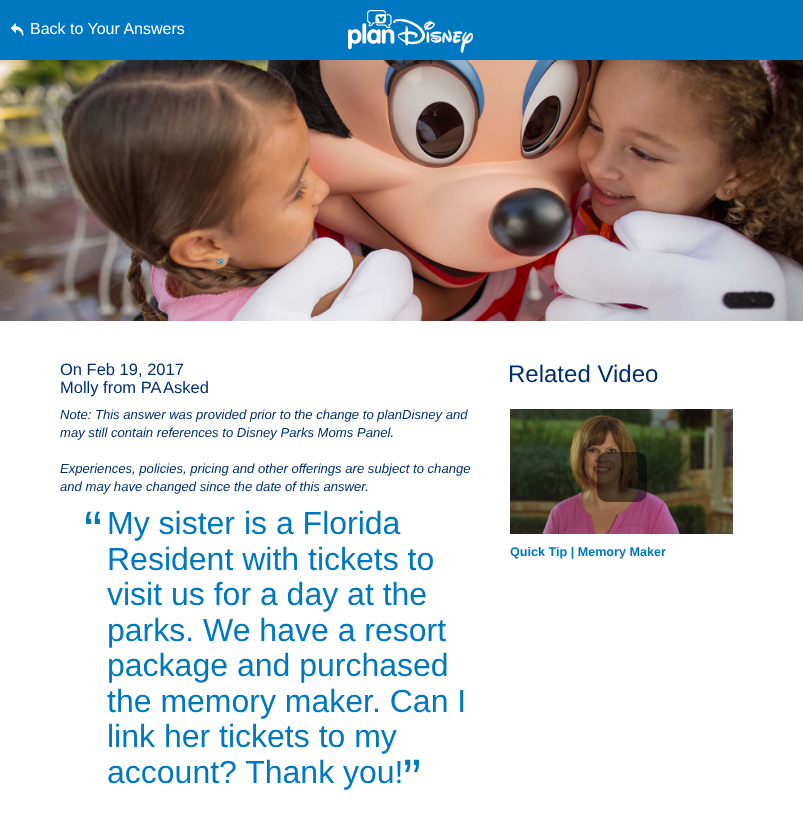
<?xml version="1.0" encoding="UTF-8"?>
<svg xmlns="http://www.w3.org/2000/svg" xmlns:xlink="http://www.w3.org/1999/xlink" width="803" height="819">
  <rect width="100%" height="100%" fill="#ffffff" />
  <rect width="803" height="60" fill="#0078c1" />
  <image x="11" y="23" width="13" height="13" xlink:href="image1.png" />
  <image x="348" y="10" width="125" height="43" xlink:href="image2.png" />
  <image x="0" y="60" width="803" height="261" xlink:href="image3.png" />
  <image x="510" y="409" width="223" height="125" xlink:href="image4.png" />
  <rect x="597" y="452" width="50" height="50" rx="10" fill="#000000" fill-opacity="0.5" />
  <text x="30" y="34" style="font-family: Liberation Sans; font-size: 16px; fill: #ffffff">Back to Your Answers</text>
  <text x="60" y="375" style="font-family: Liberation Sans; font-size: 16.5px; fill: #002e6e">On Feb 19, 2017</text>
  <text x="60" y="393" style="font-family: Liberation Sans; font-size: 16.5px; fill: #002e6e">Molly from PA</text>
  <text x="163" y="393" style="font-family: Liberation Sans; font-size: 16.5px; fill: #002e6e">Asked</text>
  <text x="60" y="419" style="font-family: Liberation Sans; font-size: 13.1px; font-style: italic; fill: #002e6e">Note: This answer was provided prior to the change to planDisney and</text>
  <text x="60" y="437" style="font-family: Liberation Sans; font-size: 13.1px; font-style: italic; fill: #002e6e">may still contain references to Disney Parks Moms Panel.</text>
  <text x="60" y="473" style="font-family: Liberation Sans; font-size: 13.1px; font-style: italic; fill: #002e6e">Experiences, policies, pricing and other offerings are subject to change</text>
  <text x="60" y="491" style="font-family: Liberation Sans; font-size: 13.1px; font-style: italic; fill: #002e6e">and may have changed since the date of this answer.</text>
  <text x="84" y="549" style="font-family: Liberation Sans; font-size: 54px; fill: #0078c1">“</text>
  <text x="107" y="534" style="font-family: Liberation Sans; font-size: 32px; fill: #0078c1">My sister is a Florida</text>
  <text x="107" y="570" style="font-family: Liberation Sans; font-size: 32px; fill: #0078c1">Resident with tickets to</text>
  <text x="107" y="605" style="font-family: Liberation Sans; font-size: 32px; fill: #0078c1">visit us for a day at the</text>
  <text x="107" y="641" style="font-family: Liberation Sans; font-size: 32px; fill: #0078c1">parks. We have a resort</text>
  <text x="107" y="676" style="font-family: Liberation Sans; font-size: 32px; fill: #0078c1">package and purchased</text>
  <text x="107" y="712" style="font-family: Liberation Sans; font-size: 32px; fill: #0078c1">the memory maker. Can I</text>
  <text x="107" y="747" style="font-family: Liberation Sans; font-size: 32px; fill: #0078c1">link her tickets to my</text>
  <text x="107" y="783" style="font-family: Liberation Sans; font-size: 32px; fill: #0078c1">account? Thank you!</text>
  <text x="403" y="797" style="font-family: Liberation Sans; font-size: 54px; fill: #0078c1">”</text>
  <text x="508" y="382" style="font-family: Liberation Sans; font-size: 24px; fill: #002e6e">Related Video</text>
  <text x="510" y="556" style="font-family: Liberation Sans; font-size: 12.6px; font-weight: bold; fill: #0078c1">Quick Tip | Memory Maker</text>
</svg>
